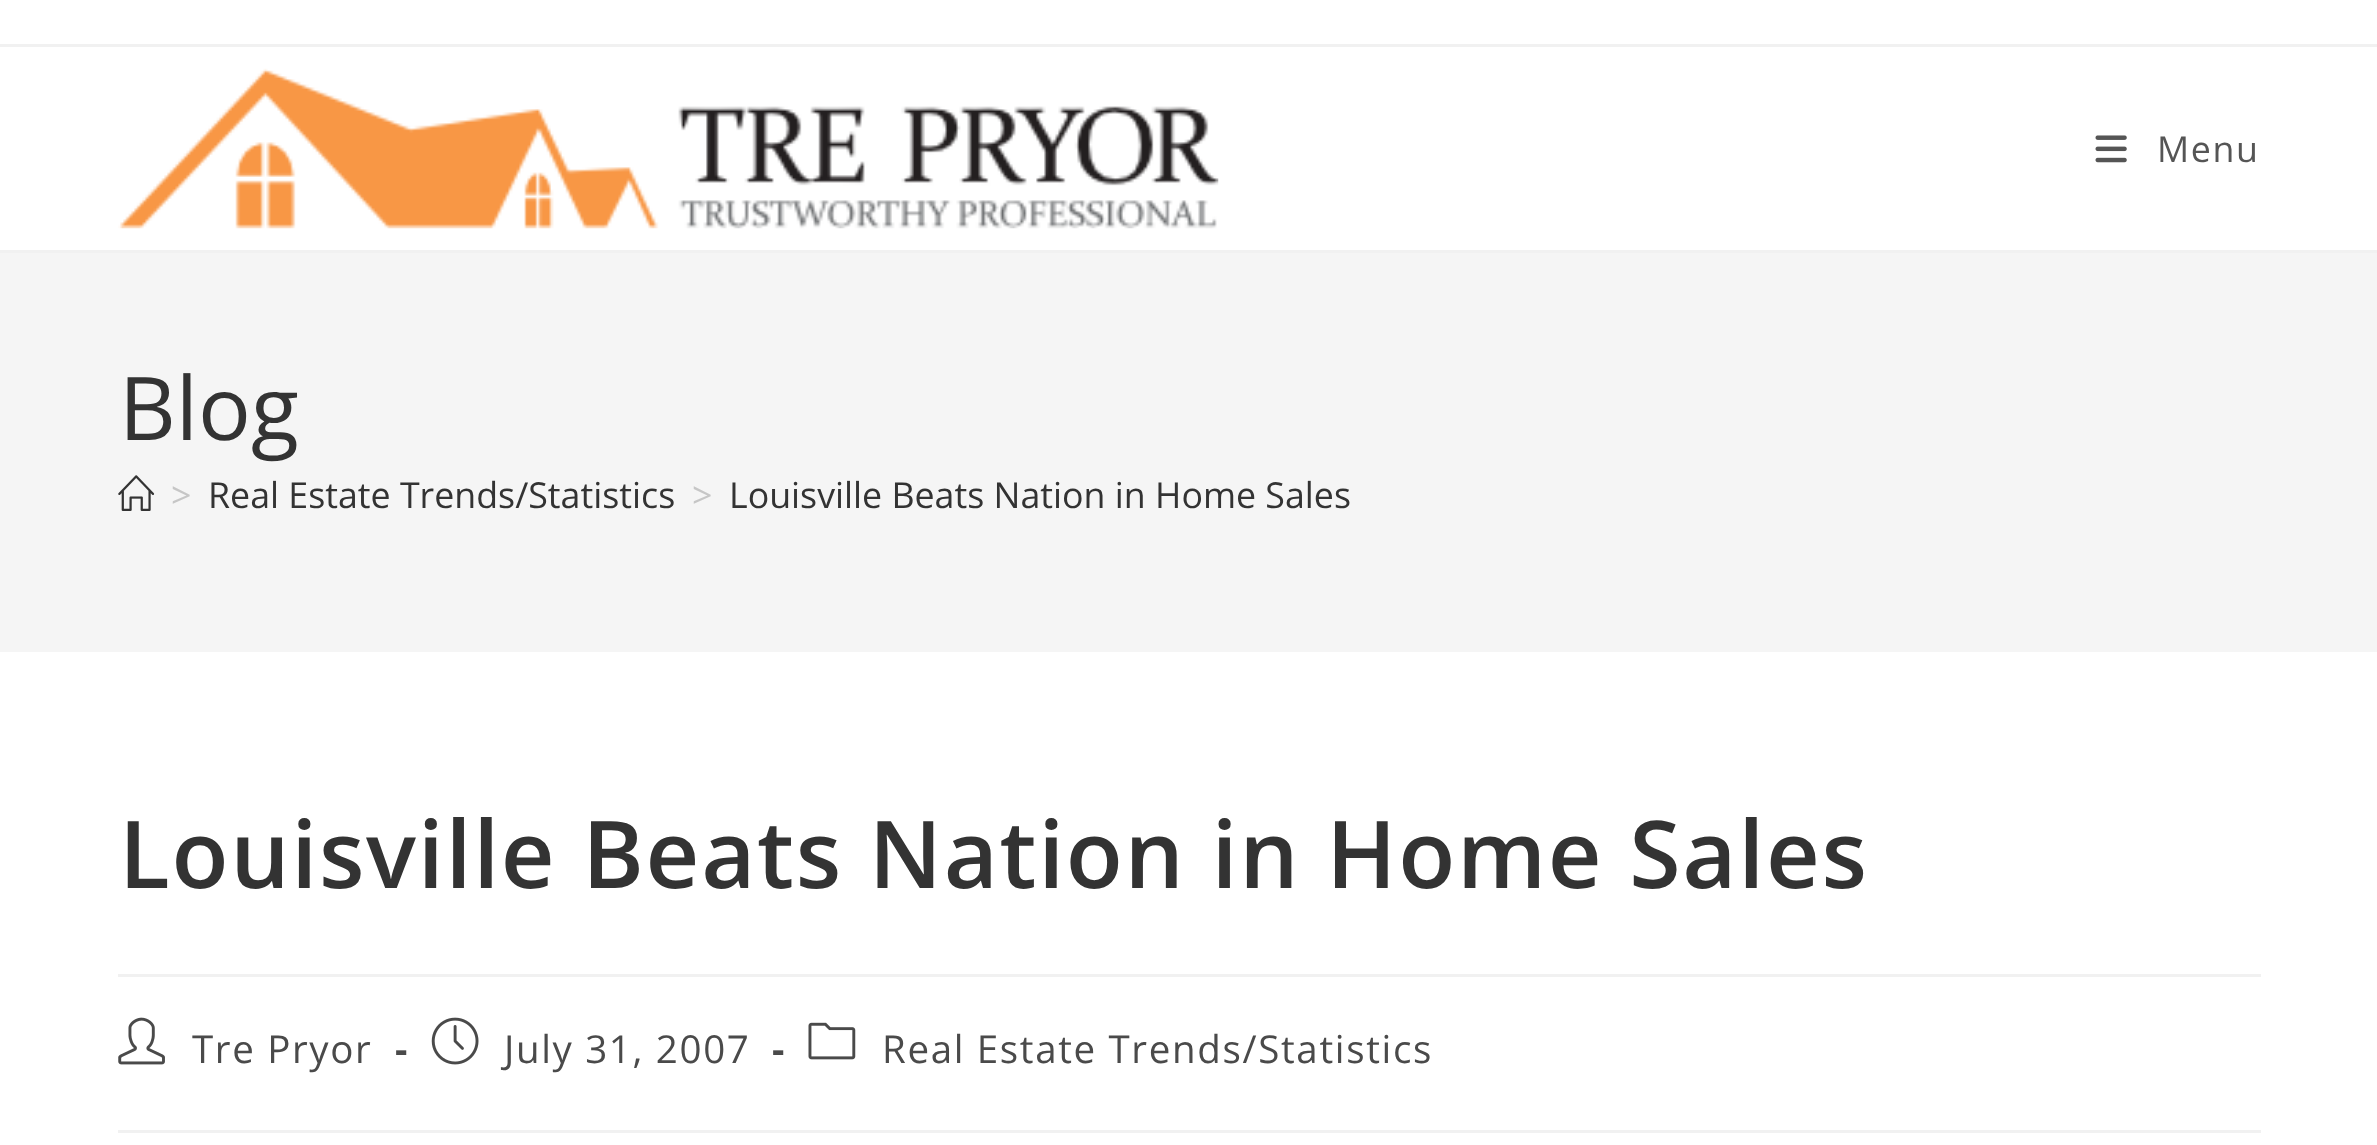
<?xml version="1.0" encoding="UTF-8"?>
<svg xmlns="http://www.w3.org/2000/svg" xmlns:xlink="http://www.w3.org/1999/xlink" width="2377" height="1145">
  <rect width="100%" height="100%" fill="#ffffff" />
  <rect y="44" width="2377" height="3" fill="#f1f1f1" />
  <rect y="250" width="2377" height="3" fill="#f1f1f1" />
  <image x="118" y="68" width="1101" height="161" xlink:href="image1.png" />
  <image x="2095" y="135" width="32" height="28" xlink:href="image2.png" />
  <rect y="253" width="2377" height="399" fill="#f5f5f5" />
  <image x="118" y="475" width="37" height="36" xlink:href="image3.png" />
  <rect x="118" y="974" width="2143" height="3" fill="#f1f1f1" />
  <rect x="118" y="1130" width="2143" height="3" fill="#f1f1f1" />
  <image x="118" y="1017" width="47" height="48" xlink:href="image4.png" />
  <image x="431" y="1017" width="48" height="48" xlink:href="image5.png" />
  <image x="808" y="1022" width="48" height="38" xlink:href="image6.png" />
  <text x="2157" y="162" style="font-family: Open Sans; font-size: 35.75px; letter-spacing: 1.65px; fill: #555555">Menu</text>
  <text x="119" y="440" style="font-family: Open Sans; font-size: 88px; fill: #333333">Blog</text>
  <text x="171" y="508" style="font-family: Open Sans; font-size: 35.75px; fill: #c6c6c6">&gt;</text>
  <text x="208" y="508" style="font-family: Open Sans; font-size: 35.75px; fill: #333333">Real Estate Trends/Statistics</text>
  <text x="692" y="508" style="font-family: Open Sans; font-size: 35.75px; fill: #c6c6c6">&gt;</text>
  <text x="729" y="508" style="font-family: Open Sans; font-size: 35.75px; fill: #333333">Louisville Beats Nation in Home Sales</text>
  <text x="119" y="888" style="font-family: Open Sans; font-size: 93.5px; font-weight: 600; letter-spacing: 1.65px; fill: #333333">Louisville Beats Nation in Home Sales</text>
  <text x="192" y="1063" style="font-family: Open Sans; font-size: 38.5px; letter-spacing: 1.65px; fill: #4a4a4a">Tre Pryor</text>
  <text x="395" y="1063" style="font-family: Open Sans; font-size: 38.5px; font-weight: bold; letter-spacing: 1.65px; fill: #4a4a4a">-</text>
  <text x="504" y="1063" style="font-family: Open Sans; font-size: 38.5px; letter-spacing: 1.65px; fill: #4a4a4a">July 31, 2007</text>
  <text x="772" y="1063" style="font-family: Open Sans; font-size: 38.5px; font-weight: bold; letter-spacing: 1.65px; fill: #4a4a4a">-</text>
  <text x="882" y="1063" style="font-family: Open Sans; font-size: 38.5px; letter-spacing: 1.65px; fill: #4a4a4a">Real Estate Trends/Statistics</text>
</svg>
